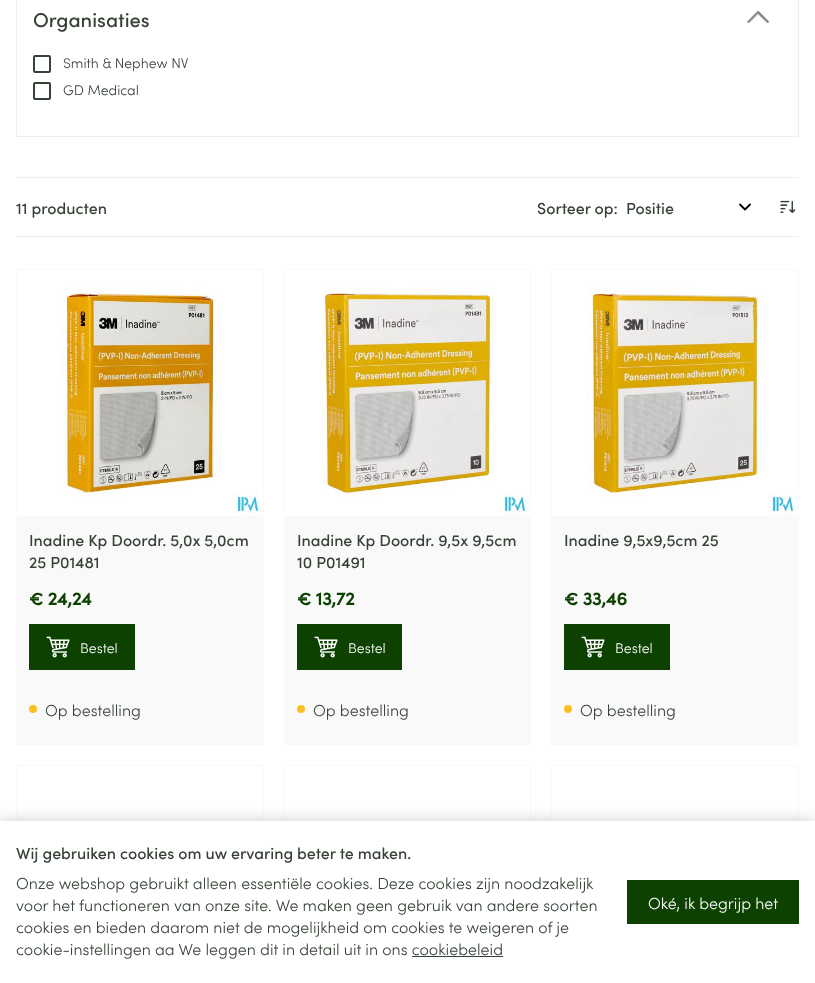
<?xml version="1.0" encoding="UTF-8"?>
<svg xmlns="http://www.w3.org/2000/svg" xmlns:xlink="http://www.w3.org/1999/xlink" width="815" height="983">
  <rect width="100%" height="100%" fill="#ffffff" />
  <rect x="798" width="1" height="137" fill="#edeeed" />
  <rect x="16" y="136" width="783" height="1" fill="#edeeed" />
  <rect x="16" width="1" height="137" fill="#edeeed" />
  <image x="747" y="10" width="22" height="14" xlink:href="image1.png" />
  <rect x="34" y="56" width="16" height="16" rx="1" fill="none" stroke="#374237" stroke-width="2" />
  <rect x="34" y="83" width="16" height="16" rx="1" fill="none" stroke="#374237" stroke-width="2" />
  <rect x="16" y="177" width="783" height="1" fill="#edeeed" />
  <path d="M 740 204.5 l 5 5 l 5 -5" fill="none" stroke="#000000" stroke-width="1.8" stroke-linecap="round" stroke-linejoin="round" />
  <image x="780" y="200" width="16" height="14" xlink:href="image2.png" />
  <rect x="16" y="236" width="783" height="1" fill="#edeeed" />
  <rect x="16.5" y="269.5" width="247" height="475" fill="none" stroke="#f9f9f9" />
  <image x="61" y="287" width="201" height="228" xlink:href="image3.png" />
  <rect x="17" y="516" width="246" height="228" fill="#f9f9f9" />
  <rect x="29" y="624" width="106" height="46" fill="#0c4100" />
  <image x="46" y="636" width="24" height="22" xlink:href="image4.png" />
  <circle cx="33" cy="709" r="4" fill="#fbbf24" />
  <rect x="284.5" y="269.5" width="246" height="475" fill="none" stroke="#f9f9f9" />
  <image x="320" y="287" width="209" height="228" xlink:href="image5.png" />
  <rect x="285" y="516" width="245" height="228" fill="#f9f9f9" />
  <rect x="297" y="624" width="105" height="46" fill="#0c4100" />
  <image x="314" y="636" width="24" height="22" xlink:href="image4.png" />
  <circle cx="301" cy="709" r="4" fill="#fbbf24" />
  <rect x="551.5" y="269.5" width="247" height="475" fill="none" stroke="#f9f9f9" />
  <image x="587" y="287" width="210" height="228" xlink:href="image6.png" />
  <rect x="552" y="516" width="246" height="228" fill="#f9f9f9" />
  <rect x="564" y="624" width="106" height="46" fill="#0c4100" />
  <image x="581" y="636" width="24" height="22" xlink:href="image4.png" />
  <circle cx="568" cy="709" r="4" fill="#fbbf24" />
  <rect x="16.5" y="765.5" width="247" height="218" fill="none" stroke="#f9f9f9" />
  <rect x="284.5" y="765.5" width="246" height="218" fill="none" stroke="#f9f9f9" />
  <rect x="551.5" y="765.5" width="247" height="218" fill="none" stroke="#f9f9f9" />
  <rect y="821" width="815" height="162" fill="#000000" fill-opacity="0.2" filter="blur(7.5px)" />
  <rect y="821" width="815" height="162" fill="#ffffff" />
  <rect x="412" y="956" width="91" height="1" fill="#374237" />
  <rect x="627" y="880" width="172" height="44" fill="#0c4100" />
  <text x="33" y="27" style="font-family: Sofia; font-size: 20px; font-weight: 500; fill: #374237">Organisaties</text>
  <text x="63" y="68" style="font-family: Sofia; font-size: 14px; font-weight: 300; fill: #374237">Smith &amp; Nephew NV</text>
  <text x="63" y="95" style="font-family: Sofia; font-size: 14px; font-weight: 300; fill: #374237">GD Medical</text>
  <text x="16" y="214" style="font-family: Sofia; font-size: 16px; font-weight: 500; fill: #374237">11 producten</text>
  <text x="537" y="214" style="font-family: Sofia; font-size: 16px; font-weight: 500; fill: #374237">Sorteer op:</text>
  <text x="626" y="214" style="font-family: Sofia; font-size: 16px; font-weight: 500; fill: #374237">Positie</text>
  <text x="29" y="546" style="font-family: Sofia; font-size: 16px; font-weight: 500; fill: #374237">Inadine Kp Doordr. 5,0x 5,0cm</text>
  <text x="29" y="568" style="font-family: Sofia; font-size: 16px; font-weight: 500; fill: #374237">25 P01481</text>
  <text x="29" y="605" style="font-family: Sofia; font-size: 18px; font-weight: bold; fill: #0c4100">€ 24,24</text>
  <text x="80" y="653" style="font-family: Sofia; font-size: 14px; font-weight: 300; fill: #ffffff">Bestel</text>
  <text x="45" y="716" style="font-family: Sofia; font-size: 16px; font-weight: 300; fill: #374237">Op bestelling</text>
  <text x="297" y="546" style="font-family: Sofia; font-size: 16px; font-weight: 500; fill: #374237">Inadine Kp Doordr. 9,5x 9,5cm</text>
  <text x="297" y="568" style="font-family: Sofia; font-size: 16px; font-weight: 500; fill: #374237">10 P01491</text>
  <text x="297" y="605" style="font-family: Sofia; font-size: 18px; font-weight: bold; fill: #0c4100">€ 13,72</text>
  <text x="348" y="653" style="font-family: Sofia; font-size: 14px; font-weight: 300; fill: #ffffff">Bestel</text>
  <text x="313" y="716" style="font-family: Sofia; font-size: 16px; font-weight: 300; fill: #374237">Op bestelling</text>
  <text x="564" y="546" style="font-family: Sofia; font-size: 16px; font-weight: 500; fill: #374237">Inadine 9,5x9,5cm 25</text>
  <text x="564" y="605" style="font-family: Sofia; font-size: 18px; font-weight: bold; fill: #0c4100">€ 33,46</text>
  <text x="615" y="653" style="font-family: Sofia; font-size: 14px; font-weight: 300; fill: #ffffff">Bestel</text>
  <text x="580" y="716" style="font-family: Sofia; font-size: 16px; font-weight: 300; fill: #374237">Op bestelling</text>
  <text x="16" y="859" style="font-family: Sofia; font-size: 16px; font-weight: 500; fill: #374237">Wij gebruiken cookies om uw ervaring beter te maken.</text>
  <text x="16" y="889" style="font-family: Sofia; font-size: 16px; font-weight: 300; fill: #374237">Onze webshop gebruikt alleen essentiële cookies. Deze cookies zijn noodzakelijk</text>
  <text x="16" y="911" style="font-family: Sofia; font-size: 16px; font-weight: 300; fill: #374237">voor het functioneren van onze site. We maken geen gebruik van andere soorten</text>
  <text x="16" y="933" style="font-family: Sofia; font-size: 16px; font-weight: 300; fill: #374237">cookies en bieden daarom niet de mogelijkheid om cookies te weigeren of je</text>
  <text x="16" y="955" style="font-family: Sofia; font-size: 16px; font-weight: 300; fill: #374237">cookie-instellingen aa We leggen dit in detail uit in ons cookiebeleid</text>
  <text x="648" y="909" style="font-family: Sofia; font-size: 16px; font-weight: 300; fill: #ffffff">Oké, ik begrijp het</text>
</svg>
